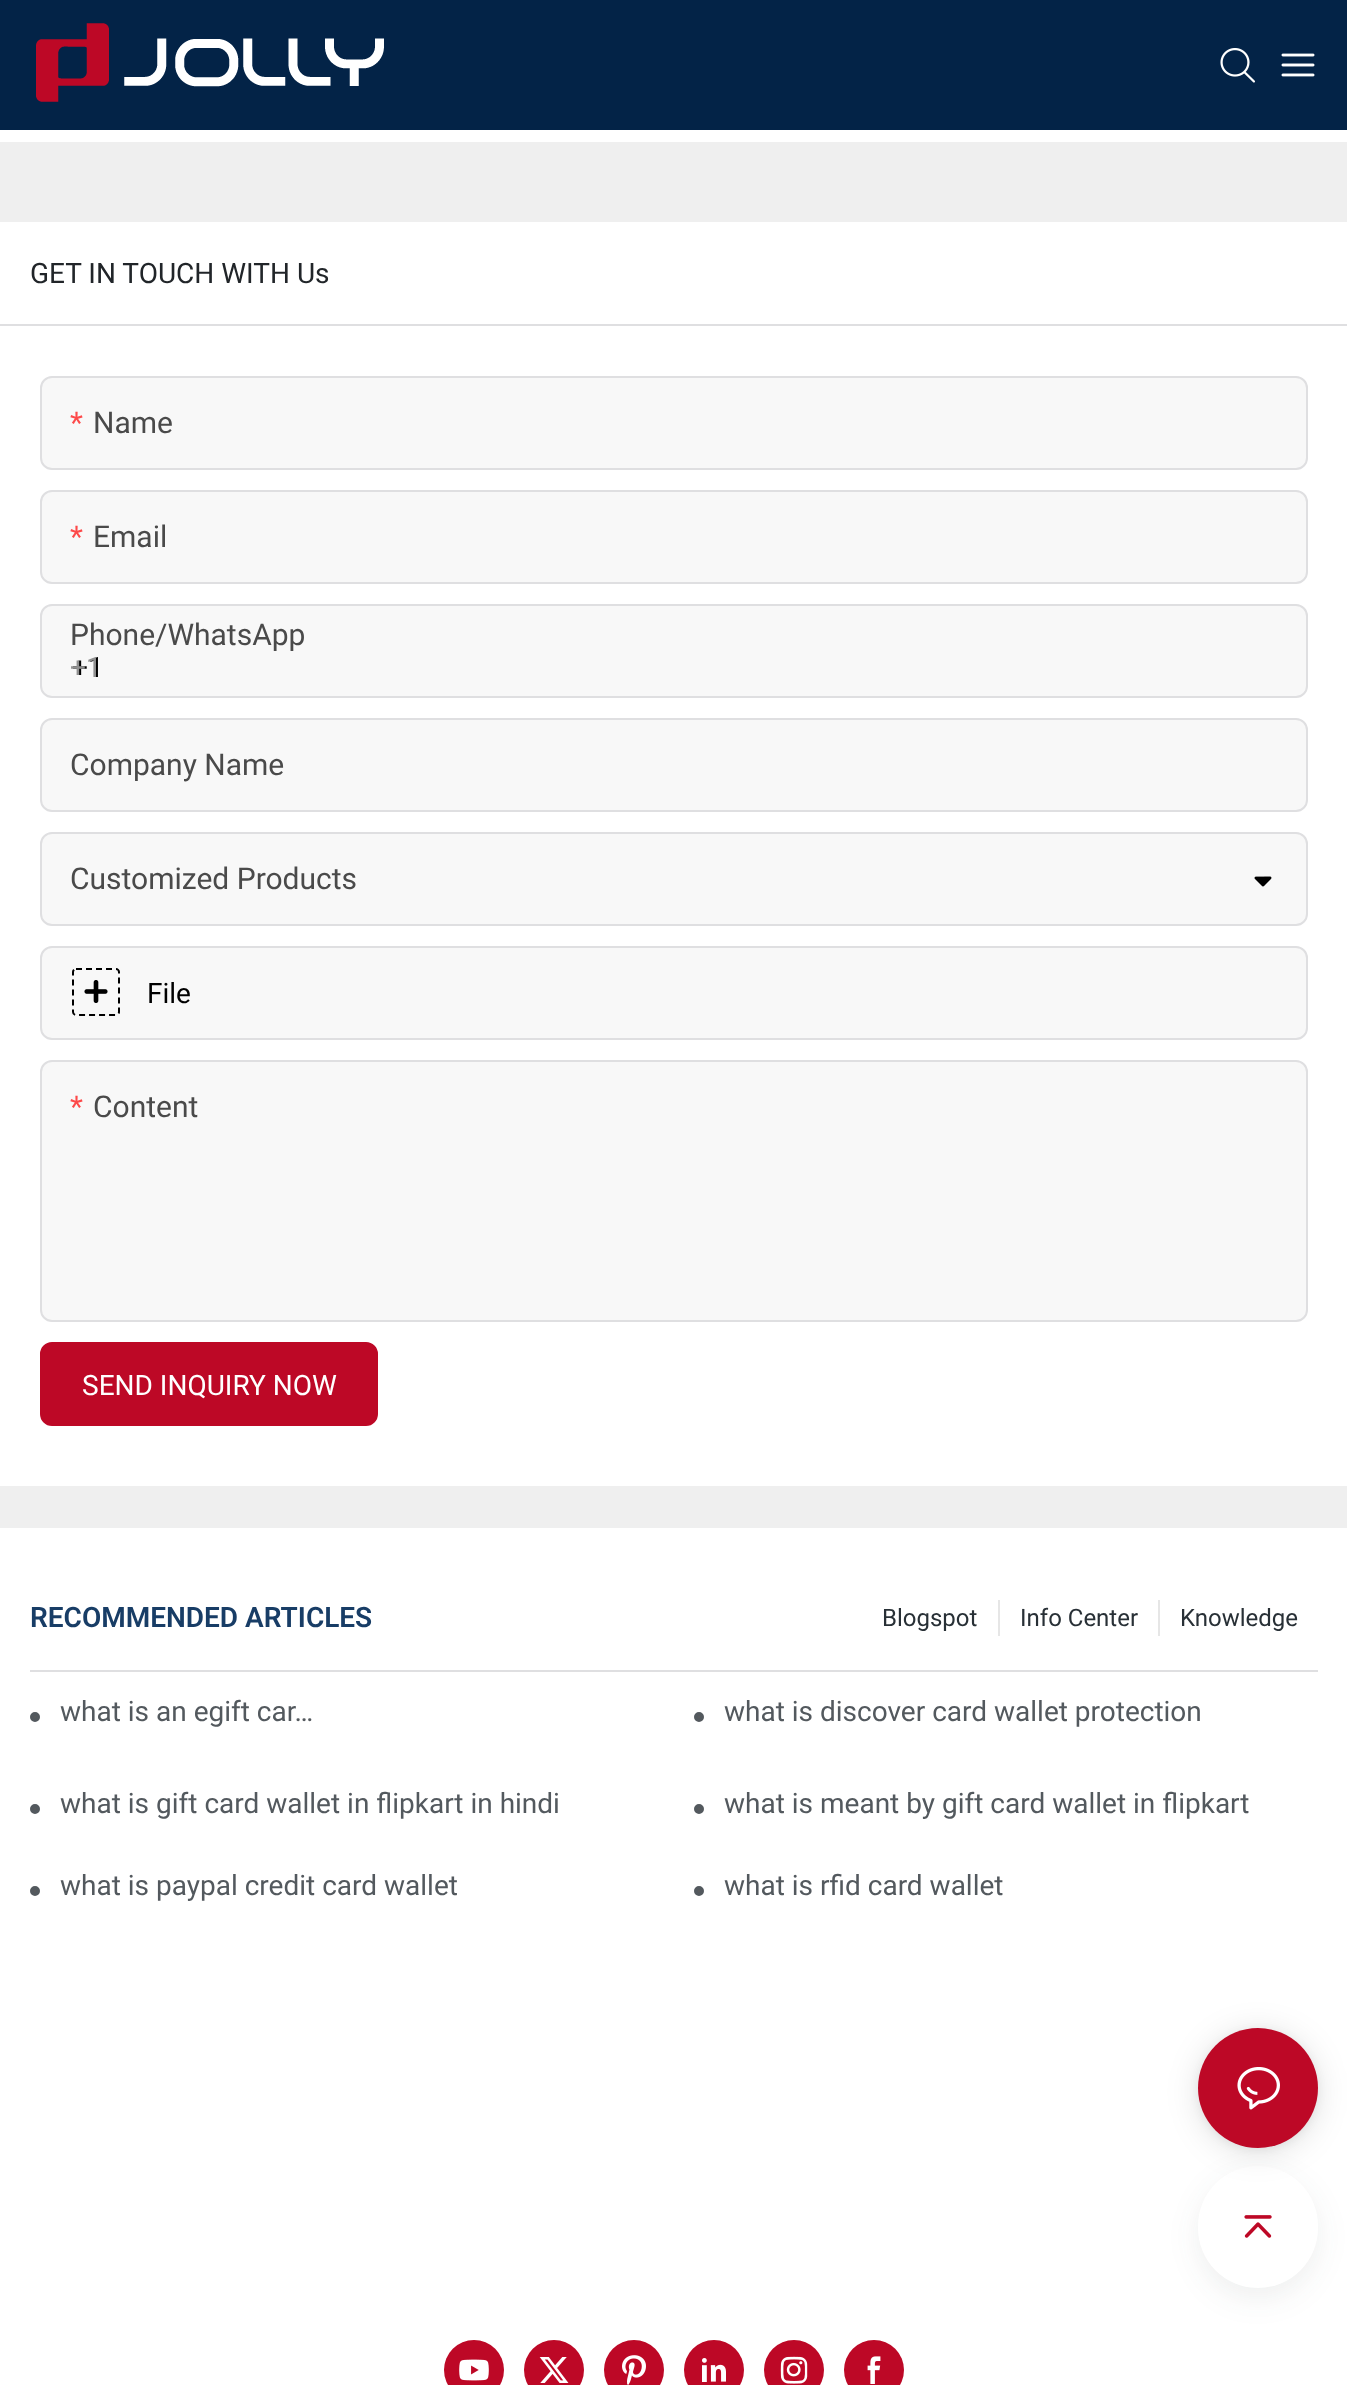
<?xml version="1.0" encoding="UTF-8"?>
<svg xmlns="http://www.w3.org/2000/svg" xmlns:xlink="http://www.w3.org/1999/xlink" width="1347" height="2385">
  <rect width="100%" height="100%" fill="#ffffff" />
  <rect width="1347" height="130" fill="#032347" />
  <image x="36" y="23" width="348" height="79" xlink:href="image1.png" />
  <image x="1220" y="48" width="35" height="35" xlink:href="image2.png" />
  <image x="1281" y="53" width="34" height="24" xlink:href="image3.png" />
  <rect y="142" width="1347" height="1386" fill="#efefef" />
  <rect y="222" width="1347" height="1264" fill="#ffffff" />
  <rect y="324" width="1347" height="2" fill="#dfdfe1" />
  <rect x="41" y="377" width="1266" height="92" rx="11" fill="#f8f8f8" stroke="#dfdfe1" stroke-width="2" />
  <rect x="41" y="491" width="1266" height="92" rx="11" fill="#f8f8f8" stroke="#dfdfe1" stroke-width="2" />
  <rect x="41" y="605" width="1266" height="92" rx="11" fill="#f8f8f8" stroke="#dfdfe1" stroke-width="2" />
  <rect x="41" y="719" width="1266" height="92" rx="11" fill="#f8f8f8" stroke="#dfdfe1" stroke-width="2" />
  <rect x="41" y="833" width="1266" height="92" rx="11" fill="#f8f8f8" stroke="#dfdfe1" stroke-width="2" />
  <image x="1254" y="876" width="18" height="11" xlink:href="image4.png" />
  <rect x="41" y="947" width="1266" height="92" rx="11" fill="#f8f8f8" stroke="#dfdfe1" stroke-width="2" />
  <path d="M 76 969 h 40 c 1.5 0 3 1.5 3 3 v 40 c 0 1.5 -1.5 3 -3 3 h -40 c -1.5 0 -3 -1.5 -3 -3 v -40 c 0 -1.5 1.5 -3 3 -3 z" fill="none" stroke="#000000" stroke-width="2" stroke-dasharray="6 4" />
  <image x="84" y="980" width="24" height="23" xlink:href="image5.png" />
  <rect x="41" y="1061" width="1266" height="260" rx="11" fill="#f8f8f8" stroke="#dfdfe1" stroke-width="2" />
  <rect x="41" y="1343" width="336" height="82" rx="11" fill="#bd0826" stroke="#bd0826" stroke-width="2" />
  <rect x="30" y="1670" width="1288" height="2" fill="#dfdfe1" />
  <rect x="998" y="1600" width="2" height="36" fill="#e6e6e6" />
  <rect x="1158" y="1600" width="2" height="36" fill="#e6e6e6" />
  <circle cx="35" cy="1717" r="3" fill="#5c5c5c" stroke="#53595e" stroke-width="4" />
  <circle cx="699" cy="1717" r="3" fill="#5c5c5c" stroke="#53595e" stroke-width="4" />
  <circle cx="35" cy="1809" r="3" fill="#5c5c5c" stroke="#53595e" stroke-width="4" />
  <circle cx="699" cy="1809" r="3" fill="#5c5c5c" stroke="#53595e" stroke-width="4" />
  <circle cx="35" cy="1891" r="3" fill="#5c5c5c" stroke="#53595e" stroke-width="4" />
  <circle cx="699" cy="1891" r="3" fill="#5c5c5c" stroke="#53595e" stroke-width="4" />
  <circle cx="474" cy="2370" r="30" fill="#bd0826" />
  <image x="459" y="2359" width="30" height="22" xlink:href="image6.png" />
  <circle cx="554" cy="2370" r="30" fill="#bd0826" />
  <image x="539" y="2357" width="30" height="26" xlink:href="image7.png" />
  <circle cx="634" cy="2370" r="30" fill="#bd0826" />
  <image x="622" y="2355" width="24" height="30" xlink:href="image8.png" />
  <circle cx="714" cy="2370" r="30" fill="#bd0826" />
  <image x="702" y="2358" width="24" height="24" xlink:href="image9.png" />
  <circle cx="794" cy="2370" r="30" fill="#bd0826" />
  <image x="780" y="2356" width="28" height="28" xlink:href="image10.png" />
  <circle cx="874" cy="2370" r="30" fill="#bd0826" />
  <image x="867" y="2356" width="14" height="28" xlink:href="image11.png" />
  <rect x="1198" y="2176" width="120" height="122" rx="60" fill="#282f36" fill-opacity="0.08" filter="blur(15px)" />
  <rect x="1198" y="2166" width="120" height="122" rx="60" fill="#ffffff" />
  <rect x="1198" y="2032" width="120" height="120" rx="60" fill="#000000" fill-opacity="0.12" filter="blur(16px)" />
  <rect x="1198" y="2030" width="120" height="120" rx="60" fill="#000000" fill-opacity="0.06" filter="blur(4px)" />
  <circle cx="1258" cy="2088" r="60" fill="#bd0826" />
  <image x="1237" y="2067" width="43" height="43" xlink:href="image12.png" />
  <image x="1244" y="2215" width="28" height="23" xlink:href="image13.png" />
  <text x="30" y="283" style="font-family: Roboto; font-size: 28px; fill: #212529">GET IN TOUCH WITH Us</text>
  <text x="70" y="433" style="font-family: Roboto; font-size: 30px; fill: #fd4a4a">*</text>
  <text x="93" y="433" style="font-family: Roboto; font-size: 30px; fill: #4a4a4a">Name</text>
  <text x="70" y="547" style="font-family: Roboto; font-size: 30px; fill: #fd4a4a">*</text>
  <text x="93" y="547" style="font-family: Roboto; font-size: 30px; fill: #4a4a4a">Email</text>
  <text x="70" y="645" style="font-family: Roboto; font-size: 30px; fill: #4a4a4a">Phone/WhatsApp</text>
  <text x="72" y="677" style="font-family: Roboto; font-size: 28px; fill: #000000">+1</text>
  <text x="70" y="677" style="font-family: Roboto; font-size: 28px; fill: #909090">+1</text>
  <text x="70" y="775" style="font-family: Roboto; font-size: 30px; fill: #4a4a4a">Company Name</text>
  <text x="70" y="889" style="font-family: Roboto; font-size: 30px; fill: #4a4a4a">Customized Products</text>
  <text x="147" y="1003" style="font-family: Roboto; font-size: 28px; fill: #000000">File</text>
  <text x="70" y="1117" style="font-family: Roboto; font-size: 30px; fill: #fd4a4a">*</text>
  <text x="93" y="1117" style="font-family: Roboto; font-size: 30px; fill: #4a4a4a">Content</text>
  <text x="82" y="1395" style="font-family: Roboto; font-size: 28px; fill: #ffffff">SEND INQUIRY NOW</text>
  <text x="30" y="1627" style="font-family: Roboto; font-size: 28px; font-weight: 600; fill: #183d66">RECOMMENDED ARTICLES</text>
  <text x="882" y="1626" style="font-family: Roboto; font-size: 24px; fill: #283036">Blogspot</text>
  <text x="1020" y="1626" style="font-family: Roboto; font-size: 24px; fill: #283036">Info Center</text>
  <text x="1180" y="1626" style="font-family: Roboto; font-size: 24px; fill: #283036">Knowledge</text>
  <text x="60" y="1721" style="font-family: Roboto; font-size: 28px; fill: #53595e">what is an egift car…</text>
  <text x="724" y="1721" style="font-family: Roboto; font-size: 28px; fill: #53595e">what is discover card wallet protection</text>
  <text x="60" y="1813" style="font-family: Roboto; font-size: 28px; fill: #53595e">what is gift card wallet in flipkart in hindi</text>
  <text x="724" y="1813" style="font-family: Roboto; font-size: 28px; fill: #53595e">what is meant by gift card wallet in flipkart</text>
  <text x="60" y="1895" style="font-family: Roboto; font-size: 28px; fill: #53595e">what is paypal credit card wallet</text>
  <text x="724" y="1895" style="font-family: Roboto; font-size: 28px; fill: #53595e">what is rfid card wallet</text>
</svg>
